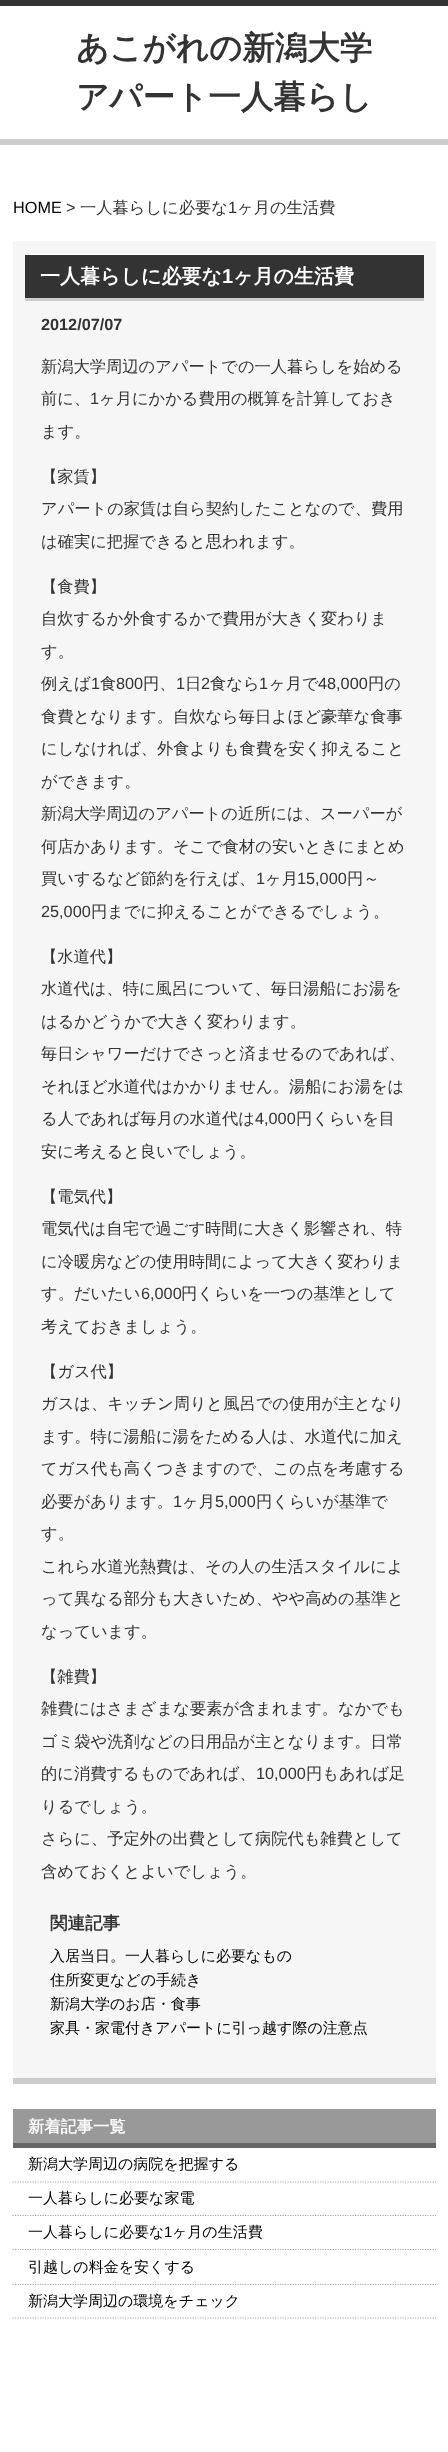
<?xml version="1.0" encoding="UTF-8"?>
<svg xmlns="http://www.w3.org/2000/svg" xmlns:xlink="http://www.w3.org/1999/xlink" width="448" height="2452">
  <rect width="100%" height="100%" fill="#ffffff" />
  <rect width="448" height="6" fill="#333333" />
  <rect y="139" width="448" height="6" fill="#cccccc" />
  <rect x="13" y="241" width="423" height="1837" fill="#f6f6f6" />
  <rect x="13" y="2078" width="423" height="6" fill="#cccccc" />
  <rect x="25" y="255" width="399" height="43" fill="#333333" />
  <rect x="25" y="254" width="399" height="1" fill="#ffffff" />
  <rect x="25" y="298" width="399" height="3" fill="#cccccc" />
  <rect x="50" y="1914" width="70" height="1" fill="#ffffff" />
  <rect x="13" y="2109" width="423" height="34" fill="#999999" />
  <rect x="13" y="2143" width="423" height="5" fill="#666666" />
  <path d="M 12.5 2182 h 423.5" fill="none" stroke="#aaaaaa" stroke-width="1.2" stroke-dasharray="1.25 1.25" />
  <path d="M 12.5 2215.5 h 423.5" fill="none" stroke="#aaaaaa" stroke-width="1.2" stroke-dasharray="1.25 1.25" />
  <path d="M 12.5 2249.5 h 423.5" fill="none" stroke="#aaaaaa" stroke-width="1.2" stroke-dasharray="1.25 1.25" />
  <path d="M 12.5 2284.5 h 423.5" fill="none" stroke="#aaaaaa" stroke-width="1.2" stroke-dasharray="1.25 1.25" />
  <path d="M 12.5 2318 h 423.5" fill="none" stroke="#aaaaaa" stroke-width="1.2" stroke-dasharray="1.25 1.25" />
  <text x="76" y="59" style="font-family: WenQuanYi Zen Hei; font-size: 32.5px; font-weight: bold; fill: #333333">あこがれの新潟大学</text>
  <text x="76" y="108" style="font-family: WenQuanYi Zen Hei; font-size: 32.5px; font-weight: bold; fill: #333333">アパート一人暮らし</text>
  <text x="13" y="213" style="font-family: Liberation Sans; font-size: 16.25px; fill: #000000">HOME</text>
  <text x="66" y="213" style="font-family: Liberation Sans; font-size: 16.25px; fill: #333333">&gt;</text>
  <text x="80" y="213" style="font-family: WenQuanYi Zen Hei; font-size: 16.25px; font-weight: 500; fill: #333333">一人暮らしに必要な</text>
  <text x="228" y="213" style="font-family: Liberation Sans; font-size: 16.25px; fill: #333333">1</text>
  <text x="237" y="213" style="font-family: WenQuanYi Zen Hei; font-size: 16.25px; font-weight: 500; fill: #333333">ヶ月の生活費</text>
  <text x="40" y="283" style="font-family: WenQuanYi Zen Hei; font-size: 20px; font-weight: bold; fill: #ffffff">一人暮らしに必要な</text>
  <text x="222" y="283" style="font-family: Liberation Sans; font-size: 20px; font-weight: bold; fill: #ffffff">1</text>
  <text x="233" y="283" style="font-family: WenQuanYi Zen Hei; font-size: 20px; font-weight: bold; fill: #ffffff">ヶ月の生活費</text>
  <text x="41" y="330" style="font-family: Liberation Sans; font-size: 16.25px; font-weight: bold; fill: #333333">2012/07/07</text>
  <text x="41" y="372" style="font-family: WenQuanYi Zen Hei; font-size: 16.25px; font-weight: 500; fill: #333333">新潟大学周辺のアパートでの一人暮らしを始める</text>
  <text x="41" y="404" style="font-family: WenQuanYi Zen Hei; font-size: 16.25px; font-weight: 500; fill: #333333">前に、</text>
  <text x="90" y="404" style="font-family: Liberation Sans; font-size: 16.25px; fill: #333333">1</text>
  <text x="99" y="404" style="font-family: WenQuanYi Zen Hei; font-size: 16.25px; font-weight: 500; fill: #333333">ヶ月にかかる費用の概算を計算しておき</text>
  <text x="41" y="437" style="font-family: WenQuanYi Zen Hei; font-size: 16.25px; font-weight: 500; fill: #333333">ます。</text>
  <text x="41" y="482" style="font-family: WenQuanYi Zen Hei; font-size: 16.25px; font-weight: 500; fill: #333333">【家賃】</text>
  <text x="41" y="514" style="font-family: WenQuanYi Zen Hei; font-size: 16.25px; font-weight: 500; fill: #333333">アパートの家賃は自ら契約したことなので、費用</text>
  <text x="41" y="547" style="font-family: WenQuanYi Zen Hei; font-size: 16.25px; font-weight: 500; fill: #333333">は確実に把握できると思われます。</text>
  <text x="41" y="592" style="font-family: WenQuanYi Zen Hei; font-size: 16.25px; font-weight: 500; fill: #333333">【食費】</text>
  <text x="41" y="624" style="font-family: WenQuanYi Zen Hei; font-size: 16.25px; font-weight: 500; fill: #333333">自炊するか外食するかで費用が大きく変わりま</text>
  <text x="41" y="657" style="font-family: WenQuanYi Zen Hei; font-size: 16.25px; font-weight: 500; fill: #333333">す。</text>
  <text x="41" y="689" style="font-family: WenQuanYi Zen Hei; font-size: 16.25px; font-weight: 500; fill: #333333">例えば</text>
  <text x="91" y="689" style="font-family: Liberation Sans; font-size: 16.25px; fill: #333333">1</text>
  <text x="100" y="689" style="font-family: WenQuanYi Zen Hei; font-size: 16.25px; font-weight: 500; fill: #333333">食</text>
  <text x="116" y="689" style="font-family: Liberation Sans; font-size: 16.25px; fill: #333333">800</text>
  <text x="143" y="689" style="font-family: WenQuanYi Zen Hei; font-size: 16.25px; font-weight: 500; fill: #333333">円、</text>
  <text x="176" y="689" style="font-family: Liberation Sans; font-size: 16.25px; fill: #333333">1</text>
  <text x="185" y="689" style="font-family: WenQuanYi Zen Hei; font-size: 16.25px; font-weight: 500; fill: #333333">日</text>
  <text x="201" y="689" style="font-family: Liberation Sans; font-size: 16.25px; fill: #333333">2</text>
  <text x="210" y="689" style="font-family: WenQuanYi Zen Hei; font-size: 16.25px; font-weight: 500; fill: #333333">食なら</text>
  <text x="259" y="689" style="font-family: Liberation Sans; font-size: 16.25px; fill: #333333">1</text>
  <text x="269" y="689" style="font-family: WenQuanYi Zen Hei; font-size: 16.25px; font-weight: 500; fill: #333333">ヶ月で</text>
  <text x="318" y="689" style="font-family: Liberation Sans; font-size: 16.25px; fill: #333333">48,000</text>
  <text x="368" y="689" style="font-family: WenQuanYi Zen Hei; font-size: 16.25px; font-weight: 500; fill: #333333">円の</text>
  <text x="41" y="722" style="font-family: WenQuanYi Zen Hei; font-size: 16.25px; font-weight: 500; fill: #333333">食費となります。自炊なら毎日よほど豪華な食事</text>
  <text x="41" y="754" style="font-family: WenQuanYi Zen Hei; font-size: 16.25px; font-weight: 500; fill: #333333">にしなければ、外食よりも食費を安く抑えること</text>
  <text x="41" y="787" style="font-family: WenQuanYi Zen Hei; font-size: 16.25px; font-weight: 500; fill: #333333">ができます。</text>
  <text x="41" y="819" style="font-family: WenQuanYi Zen Hei; font-size: 16.25px; font-weight: 500; fill: #333333">新潟大学周辺のアパートの近所には、スーパーが</text>
  <text x="41" y="852" style="font-family: WenQuanYi Zen Hei; font-size: 16.25px; font-weight: 500; fill: #333333">何店かあります。そこで食材の安いときにまとめ</text>
  <text x="41" y="884" style="font-family: WenQuanYi Zen Hei; font-size: 16.25px; font-weight: 500; fill: #333333">買いするなど節約を行えば、</text>
  <text x="256" y="884" style="font-family: Liberation Sans; font-size: 16.25px; fill: #333333">1</text>
  <text x="265" y="884" style="font-family: WenQuanYi Zen Hei; font-size: 16.25px; font-weight: 500; fill: #333333">ヶ月</text>
  <text x="297" y="884" style="font-family: Liberation Sans; font-size: 16.25px; fill: #333333">15,000</text>
  <text x="347" y="884" style="font-family: WenQuanYi Zen Hei; font-size: 16.25px; font-weight: 500; fill: #333333">円～</text>
  <text x="41" y="917" style="font-family: Liberation Sans; font-size: 16.25px; fill: #333333">25,000</text>
  <text x="91" y="917" style="font-family: WenQuanYi Zen Hei; font-size: 16.25px; font-weight: 500; fill: #333333">円までに抑えることができるでしょう。</text>
  <text x="41" y="962" style="font-family: WenQuanYi Zen Hei; font-size: 16.25px; font-weight: 500; fill: #333333">【水道代】</text>
  <text x="41" y="994" style="font-family: WenQuanYi Zen Hei; font-size: 16.25px; font-weight: 500; fill: #333333">水道代は、特に風呂について、毎日湯船にお湯を</text>
  <text x="41" y="1027" style="font-family: WenQuanYi Zen Hei; font-size: 16.25px; font-weight: 500; fill: #333333">はるかどうかで大きく変わります。</text>
  <text x="41" y="1059" style="font-family: WenQuanYi Zen Hei; font-size: 16.25px; font-weight: 500; fill: #333333">毎日シャワーだけでさっと済ませるのであれば、</text>
  <text x="41" y="1092" style="font-family: WenQuanYi Zen Hei; font-size: 16.25px; font-weight: 500; fill: #333333">それほど水道代はかかりません。湯船にお湯をは</text>
  <text x="41" y="1124" style="font-family: WenQuanYi Zen Hei; font-size: 16.25px; font-weight: 500; fill: #333333">る人であれば毎月の水道代は</text>
  <text x="255" y="1124" style="font-family: Liberation Sans; font-size: 16.25px; fill: #333333">4,000</text>
  <text x="296" y="1124" style="font-family: WenQuanYi Zen Hei; font-size: 16.25px; font-weight: 500; fill: #333333">円くらいを目</text>
  <text x="41" y="1157" style="font-family: WenQuanYi Zen Hei; font-size: 16.25px; font-weight: 500; fill: #333333">安に考えると良いでしょう。</text>
  <text x="41" y="1202" style="font-family: WenQuanYi Zen Hei; font-size: 16.25px; font-weight: 500; fill: #333333">【電気代】</text>
  <text x="41" y="1234" style="font-family: WenQuanYi Zen Hei; font-size: 16.25px; font-weight: 500; fill: #333333">電気代は自宅で過ごす時間に大きく影響され、特</text>
  <text x="41" y="1267" style="font-family: WenQuanYi Zen Hei; font-size: 16.25px; font-weight: 500; fill: #333333">に冷暖房などの使用時間によって大きく変わりま</text>
  <text x="41" y="1299" style="font-family: WenQuanYi Zen Hei; font-size: 16.25px; font-weight: 500; fill: #333333">す。だいたい</text>
  <text x="141" y="1299" style="font-family: Liberation Sans; font-size: 16.25px; fill: #333333">6,000</text>
  <text x="181" y="1299" style="font-family: WenQuanYi Zen Hei; font-size: 16.25px; font-weight: 500; fill: #333333">円くらいを一つの基準として</text>
  <text x="41" y="1332" style="font-family: WenQuanYi Zen Hei; font-size: 16.25px; font-weight: 500; fill: #333333">考えておきましょう。</text>
  <text x="41" y="1377" style="font-family: WenQuanYi Zen Hei; font-size: 16.25px; font-weight: 500; fill: #333333">【ガス代】</text>
  <text x="41" y="1409" style="font-family: WenQuanYi Zen Hei; font-size: 16.25px; font-weight: 500; fill: #333333">ガスは、キッチン周りと風呂での使用が主となり</text>
  <text x="41" y="1442" style="font-family: WenQuanYi Zen Hei; font-size: 16.25px; font-weight: 500; fill: #333333">ます。特に湯船に湯をためる人は、水道代に加え</text>
  <text x="41" y="1474" style="font-family: WenQuanYi Zen Hei; font-size: 16.25px; font-weight: 500; fill: #333333">てガス代も高くつきますので、この点を考慮する</text>
  <text x="41" y="1507" style="font-family: WenQuanYi Zen Hei; font-size: 16.25px; font-weight: 500; fill: #333333">必要があります。</text>
  <text x="173" y="1507" style="font-family: Liberation Sans; font-size: 16.25px; fill: #333333">1</text>
  <text x="182" y="1507" style="font-family: WenQuanYi Zen Hei; font-size: 16.25px; font-weight: 500; fill: #333333">ヶ月</text>
  <text x="215" y="1507" style="font-family: Liberation Sans; font-size: 16.25px; fill: #333333">5,000</text>
  <text x="256" y="1507" style="font-family: WenQuanYi Zen Hei; font-size: 16.25px; font-weight: 500; fill: #333333">円くらいが基準で</text>
  <text x="41" y="1539" style="font-family: WenQuanYi Zen Hei; font-size: 16.25px; font-weight: 500; fill: #333333">す。</text>
  <text x="41" y="1572" style="font-family: WenQuanYi Zen Hei; font-size: 16.25px; font-weight: 500; fill: #333333">これら水道光熱費は、その人の生活スタイルによ</text>
  <text x="41" y="1604" style="font-family: WenQuanYi Zen Hei; font-size: 16.25px; font-weight: 500; fill: #333333">って異なる部分も大きいため、やや高めの基準と</text>
  <text x="41" y="1637" style="font-family: WenQuanYi Zen Hei; font-size: 16.25px; font-weight: 500; fill: #333333">なっています。</text>
  <text x="41" y="1682" style="font-family: WenQuanYi Zen Hei; font-size: 16.25px; font-weight: 500; fill: #333333">【雑費】</text>
  <text x="41" y="1714" style="font-family: WenQuanYi Zen Hei; font-size: 16.25px; font-weight: 500; fill: #333333">雑費にはさまざまな要素が含まれます。なかでも</text>
  <text x="41" y="1747" style="font-family: WenQuanYi Zen Hei; font-size: 16.25px; font-weight: 500; fill: #333333">ゴミ袋や洗剤などの日用品が主となります。日常</text>
  <text x="41" y="1779" style="font-family: WenQuanYi Zen Hei; font-size: 16.25px; font-weight: 500; fill: #333333">的に消費するものであれば、</text>
  <text x="256" y="1779" style="font-family: Liberation Sans; font-size: 16.25px; fill: #333333">10,000</text>
  <text x="306" y="1779" style="font-family: WenQuanYi Zen Hei; font-size: 16.25px; font-weight: 500; fill: #333333">円もあれば足</text>
  <text x="41" y="1812" style="font-family: WenQuanYi Zen Hei; font-size: 16.25px; font-weight: 500; fill: #333333">りるでしょう。</text>
  <text x="41" y="1844" style="font-family: WenQuanYi Zen Hei; font-size: 16.25px; font-weight: 500; fill: #333333">さらに、予定外の出費として病院代も雑費として</text>
  <text x="41" y="1877" style="font-family: WenQuanYi Zen Hei; font-size: 16.25px; font-weight: 500; fill: #333333">含めておくとよいでしょう。</text>
  <text x="50" y="1929" style="font-family: WenQuanYi Zen Hei; font-size: 17.5px; font-weight: bold; fill: #333333">関連記事</text>
  <text x="50" y="1961" style="font-family: WenQuanYi Zen Hei; font-size: 15px; font-weight: 500; fill: #000000">入居当日。一人暮らしに必要なもの</text>
  <text x="50" y="1985" style="font-family: WenQuanYi Zen Hei; font-size: 15px; font-weight: 500; fill: #000000">住所変更などの手続き</text>
  <text x="50" y="2009" style="font-family: WenQuanYi Zen Hei; font-size: 15px; font-weight: 500; fill: #000000">新潟大学のお店・食事</text>
  <text x="50" y="2033" style="font-family: WenQuanYi Zen Hei; font-size: 15px; font-weight: 500; fill: #000000">家具・家電付きアパートに引っ越す際の注意点</text>
  <text x="28" y="2132" style="font-family: WenQuanYi Zen Hei; font-size: 16.25px; font-weight: bold; fill: #f9f9f9">新着記事一覧</text>
  <text x="28" y="2169" style="font-family: WenQuanYi Zen Hei; font-size: 15px; font-weight: 500; fill: #000000">新潟大学周辺の病院を把握する</text>
  <text x="28" y="2203" style="font-family: WenQuanYi Zen Hei; font-size: 15px; font-weight: 500; fill: #000000">一人暮らしに必要な家電</text>
  <text x="28" y="2237" style="font-family: WenQuanYi Zen Hei; font-size: 15px; font-weight: 500; fill: #000000">一人暮らしに必要な</text>
  <text x="164" y="2237" style="font-family: Liberation Sans; font-size: 15px; fill: #000000">1</text>
  <text x="172" y="2237" style="font-family: WenQuanYi Zen Hei; font-size: 15px; font-weight: 500; fill: #000000">ヶ月の生活費</text>
  <text x="28" y="2272" style="font-family: WenQuanYi Zen Hei; font-size: 15px; font-weight: 500; fill: #000000">引越しの料金を安くする</text>
  <text x="28" y="2306" style="font-family: WenQuanYi Zen Hei; font-size: 15px; font-weight: 500; fill: #000000">新潟大学周辺の環境をチェック</text>
</svg>
